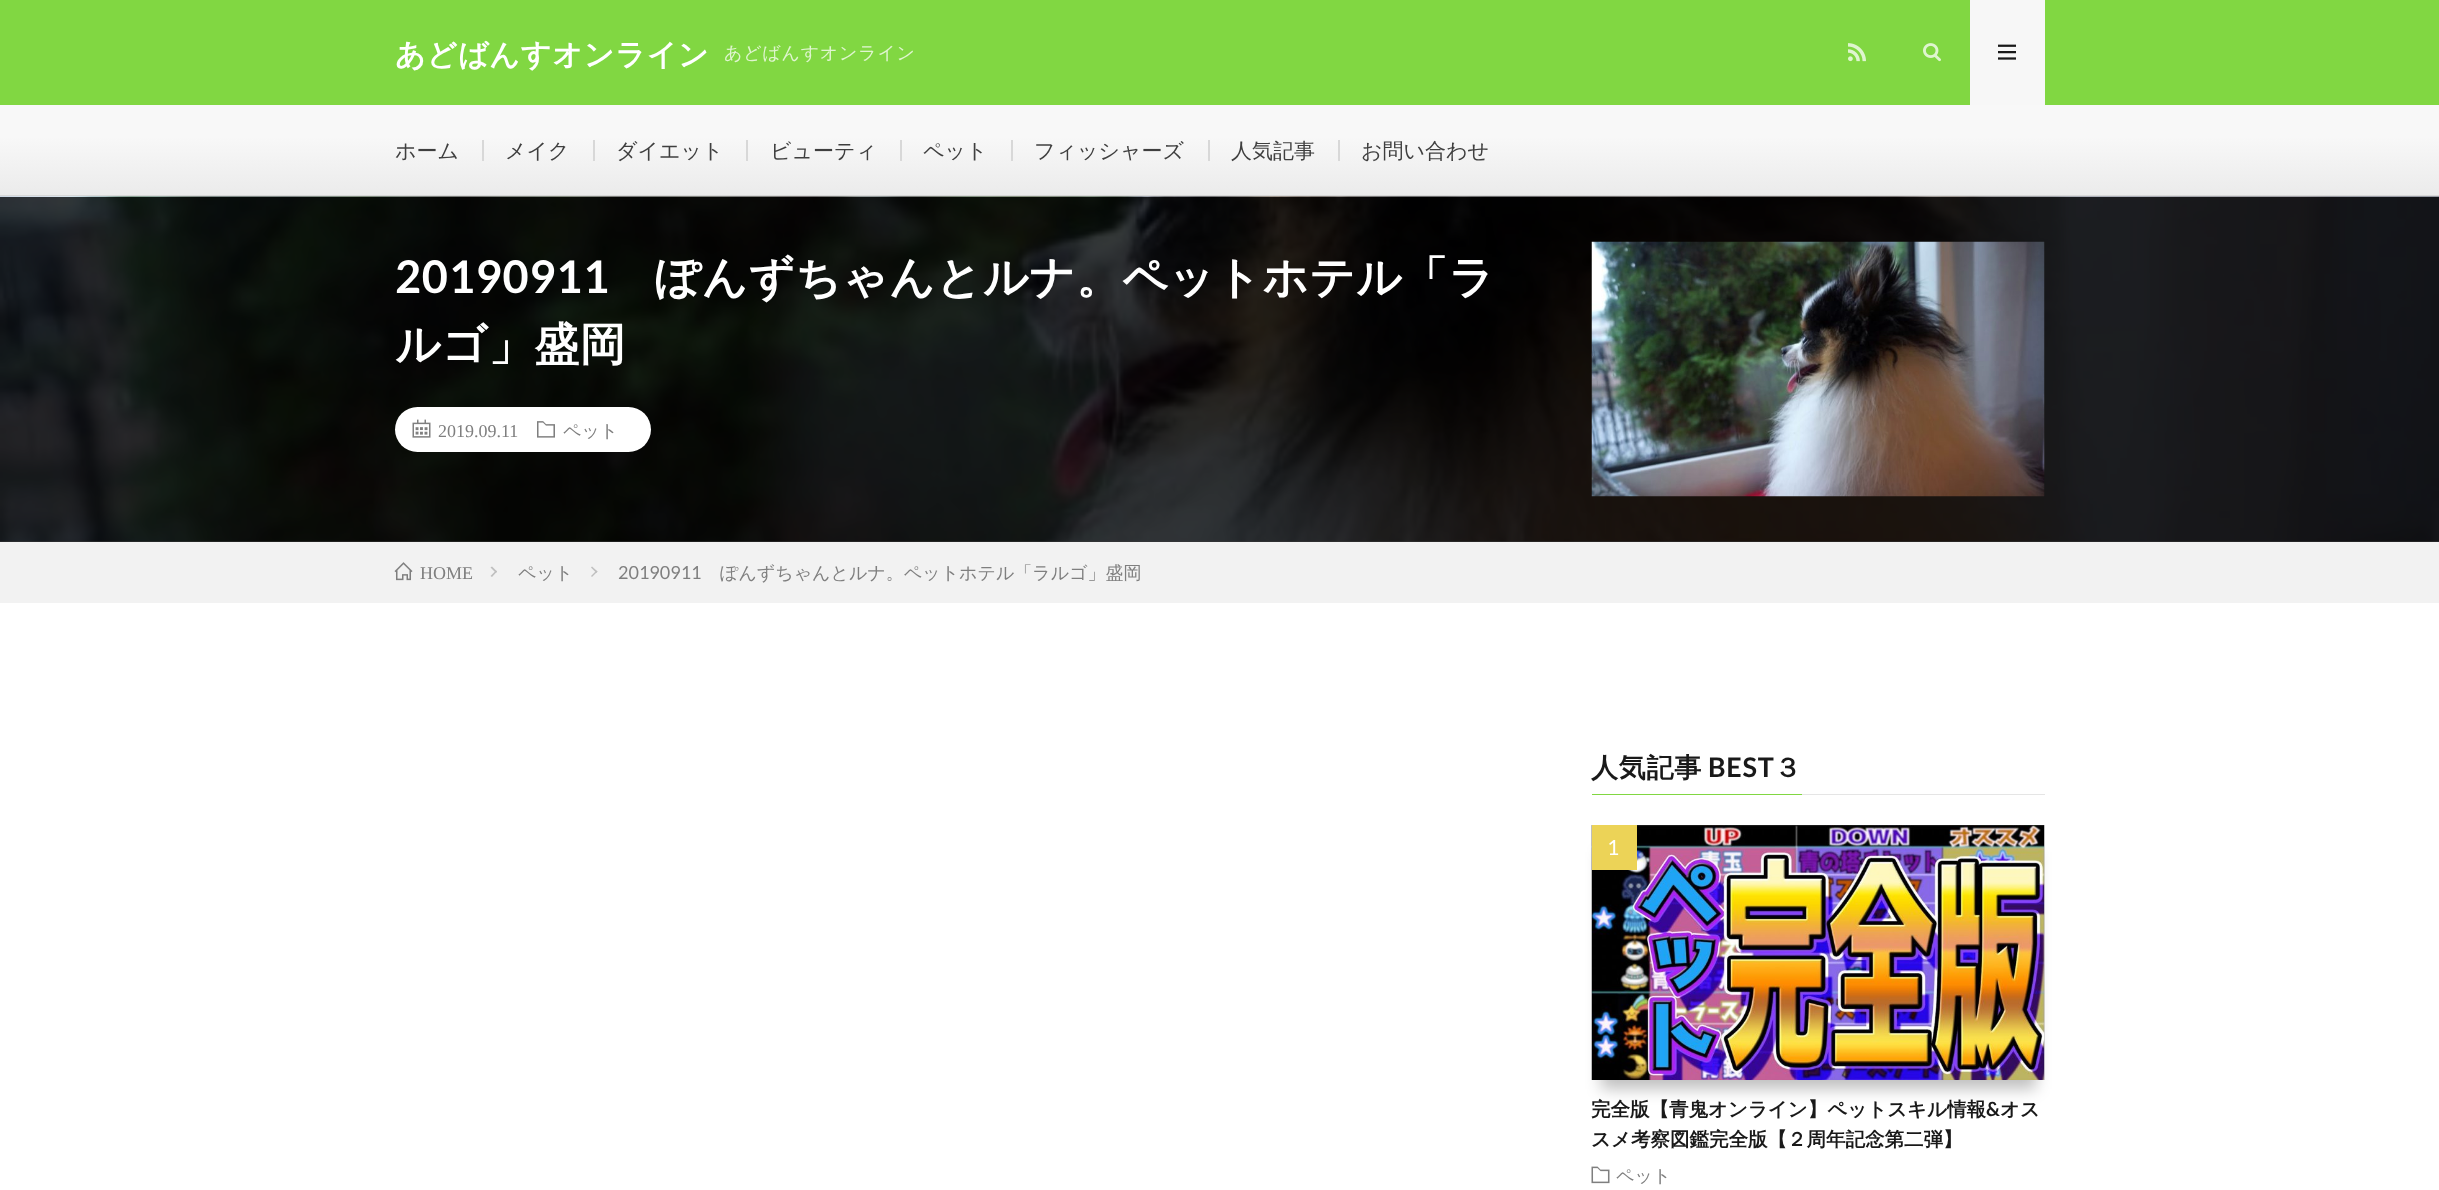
<?xml version="1.0" encoding="UTF-8"?>
<svg xmlns="http://www.w3.org/2000/svg" xmlns:xlink="http://www.w3.org/1999/xlink" width="2439" height="1190">
  <defs>
    <linearGradient id="g1" gradientUnits="userSpaceOnUse" x1="1220" y1="105" x2="1220" y2="195"><stop offset="0" stop-color="#f8f8f8" /><stop offset="0.35" stop-color="#f8f8f8" /><stop offset="1" stop-color="#ebebeb" /></linearGradient>
  </defs>
  <rect width="100%" height="100%" fill="#ffffff" />
  <rect y="541" width="2439" height="1" fill="#383838" />
  <rect width="2439" height="105" fill="#81d742" />
  <image x="1848" y="43" width="18" height="19" xlink:href="image1.png" />
  <image x="1923" y="43" width="18" height="19" xlink:href="image2.png" />
  <rect x="1970" width="75" height="105" fill="#f7f7f7" />
  <image x="1998" y="44" width="18" height="16" xlink:href="image3.png" />
  <rect y="195" width="2439" height="2" fill="#d8d8d8" />
  <rect y="105" width="2439" height="90" fill="url(#g1)" />
  <rect x="482" y="140" width="2" height="21" fill="#d8d8d8" />
  <rect x="593" y="140" width="2" height="21" fill="#d8d8d8" />
  <rect x="746" y="140" width="2" height="21" fill="#d8d8d8" />
  <rect x="900" y="140" width="2" height="21" fill="#d8d8d8" />
  <rect x="1011" y="140" width="2" height="21" fill="#d8d8d8" />
  <rect x="1208" y="140" width="2" height="21" fill="#d8d8d8" />
  <rect x="1338" y="140" width="2" height="21" fill="#d8d8d8" />
  <image x="0" y="196" width="2439" height="346" xlink:href="image4.png" />
  <rect x="395" y="407" width="256" height="45" rx="22.5" fill="#ffffff" />
  <image x="412" y="419" width="19" height="19" xlink:href="image5.png" />
  <image x="537" y="421" width="18" height="17" xlink:href="image6.png" />
  <image x="1591" y="241" width="454" height="256" xlink:href="image7.png" />
  <rect y="542" width="2439" height="61" fill="#f2f2f2" />
  <image x="394" y="562" width="19" height="19" xlink:href="image8.png" />
  <path d="M 492 566.5 l 5 5 l -1 1.5 l -5.5 -5.5 z" fill="#bfbfbf" />
  <path d="M 496 570.5 l 1 1 l -5 5.5 l -1.5 -1 z" fill="#bfbfbf" />
  <path d="M 592 566.5 l 5.5 5 l -1 1.5 l -5.5 -5.5 z" fill="#bfbfbf" />
  <path d="M 596.5 570.5 l 1 1 l -5.5 5.5 l -1 -1 z" fill="#bfbfbf" />
  <rect x="1592" y="794" width="210" height="1" fill="#81d742" />
  <rect x="1802" y="794" width="243" height="1" fill="#e5e5e5" />
  <rect x="1601" y="852" width="435" height="237" fill="#000000" fill-opacity="0.25" filter="blur(7.5px)" />
  <image x="1591" y="825" width="454" height="255" xlink:href="image9.png" />
  <rect x="1592" y="825" width="45" height="45" fill="#ecd357" />
  <image x="1591" y="1166" width="19" height="18" xlink:href="image10.png" />
  <text x="395" y="65" style="font-family: WenQuanYi Zen Hei; font-size: 30px; font-weight: bold; letter-spacing: 0.75px; fill: #ffffff">あどばんすオンライン</text>
  <text x="724" y="59" style="font-family: WenQuanYi Zen Hei; font-size: 18px; font-weight: 500; letter-spacing: 0.75px; fill: #e0f5d0">あどばんすオンライン</text>
  <text x="395" y="158" style="font-family: WenQuanYi Zen Hei; font-size: 21px; font-weight: 500; fill: #3f3f3f">ホーム</text>
  <text x="505" y="158" style="font-family: WenQuanYi Zen Hei; font-size: 21px; font-weight: 500; fill: #3f3f3f">メイク</text>
  <text x="616" y="158" style="font-family: WenQuanYi Zen Hei; font-size: 21px; font-weight: 500; fill: #3f3f3f">ダイエット</text>
  <text x="770" y="158" style="font-family: WenQuanYi Zen Hei; font-size: 21px; font-weight: 500; fill: #3f3f3f">ビューティ</text>
  <text x="923" y="158" style="font-family: WenQuanYi Zen Hei; font-size: 21px; font-weight: 500; fill: #3f3f3f">ペット</text>
  <text x="1034" y="158" style="font-family: WenQuanYi Zen Hei; font-size: 21px; font-weight: 500; fill: #3f3f3f">フィッシャーズ</text>
  <text x="1231" y="158" style="font-family: WenQuanYi Zen Hei; font-size: 21px; font-weight: 500; fill: #3f3f3f">人気記事</text>
  <text x="1361" y="158" style="font-family: WenQuanYi Zen Hei; font-size: 21px; font-weight: 500; fill: #3f3f3f">お問い合わせ</text>
  <text x="395" y="293" style="font-family: Lato; font-size: 45px; font-weight: bold; letter-spacing: 0.75px; fill: #ffffff">20190911</text>
  <text x="655" y="293" style="font-family: WenQuanYi Zen Hei; font-size: 45px; font-weight: bold; letter-spacing: 0.75px; fill: #ffffff">ぽんずちゃんとルナ。ペットホテル「ラ</text>
  <text x="395" y="360" style="font-family: WenQuanYi Zen Hei; font-size: 45px; font-weight: bold; letter-spacing: 0.75px; fill: #ffffff">ルゴ」盛岡</text>
  <text x="438" y="437" style="font-family: Liberation Serif; font-size: 18px; fill: #7f7f7f">2019.09.11</text>
  <text x="563" y="437" style="font-family: WenQuanYi Zen Hei; font-size: 18px; font-weight: 500; fill: #7f7f7f">ペット</text>
  <text x="420" y="579" style="font-family: Liberation Serif; font-size: 18px; fill: #7f7f7f">HOME</text>
  <text x="518" y="579" style="font-family: WenQuanYi Zen Hei; font-size: 18px; font-weight: 500; fill: #7f7f7f">ペット</text>
  <text x="618" y="579" style="font-family: Lato; font-size: 18px; fill: #7f7f7f">20190911</text>
  <text x="720" y="579" style="font-family: WenQuanYi Zen Hei; font-size: 18px; font-weight: 500; fill: #7f7f7f">ぽんずちゃんとルナ。ペットホテル「ラルゴ」盛岡</text>
  <text x="1591" y="777" style="font-family: WenQuanYi Zen Hei; font-size: 27px; font-weight: bold; letter-spacing: 0.75px; fill: #191919">人気記事</text>
  <text x="1708" y="777" style="font-family: Lato; font-size: 27px; font-weight: bold; letter-spacing: 0.75px; fill: #191919">BEST</text>
  <text x="1774" y="777" style="font-family: WenQuanYi Zen Hei; font-size: 27px; font-weight: bold; letter-spacing: 0.75px; fill: #191919">３</text>
  <text x="1607" y="855" style="font-family: Lato; font-size: 21px; fill: #ffffff">1</text>
  <text x="1591" y="1116" style="font-family: WenQuanYi Zen Hei; font-size: 19.5px; font-weight: bold; fill: #191919">完全版【青鬼オンライン】ペットスキル情報</text>
  <text x="1986" y="1116" style="font-family: Lato; font-size: 19.5px; font-weight: bold; fill: #191919">&amp;</text>
  <text x="2000" y="1116" style="font-family: WenQuanYi Zen Hei; font-size: 19.5px; font-weight: bold; fill: #191919">オス</text>
  <text x="1591" y="1146" style="font-family: WenQuanYi Zen Hei; font-size: 19.5px; font-weight: bold; fill: #191919">スメ考察図鑑完全版【２周年記念第二弾】</text>
  <text x="1616" y="1182" style="font-family: WenQuanYi Zen Hei; font-size: 18px; font-weight: 500; fill: #7f7f7f">ペット</text>
</svg>
